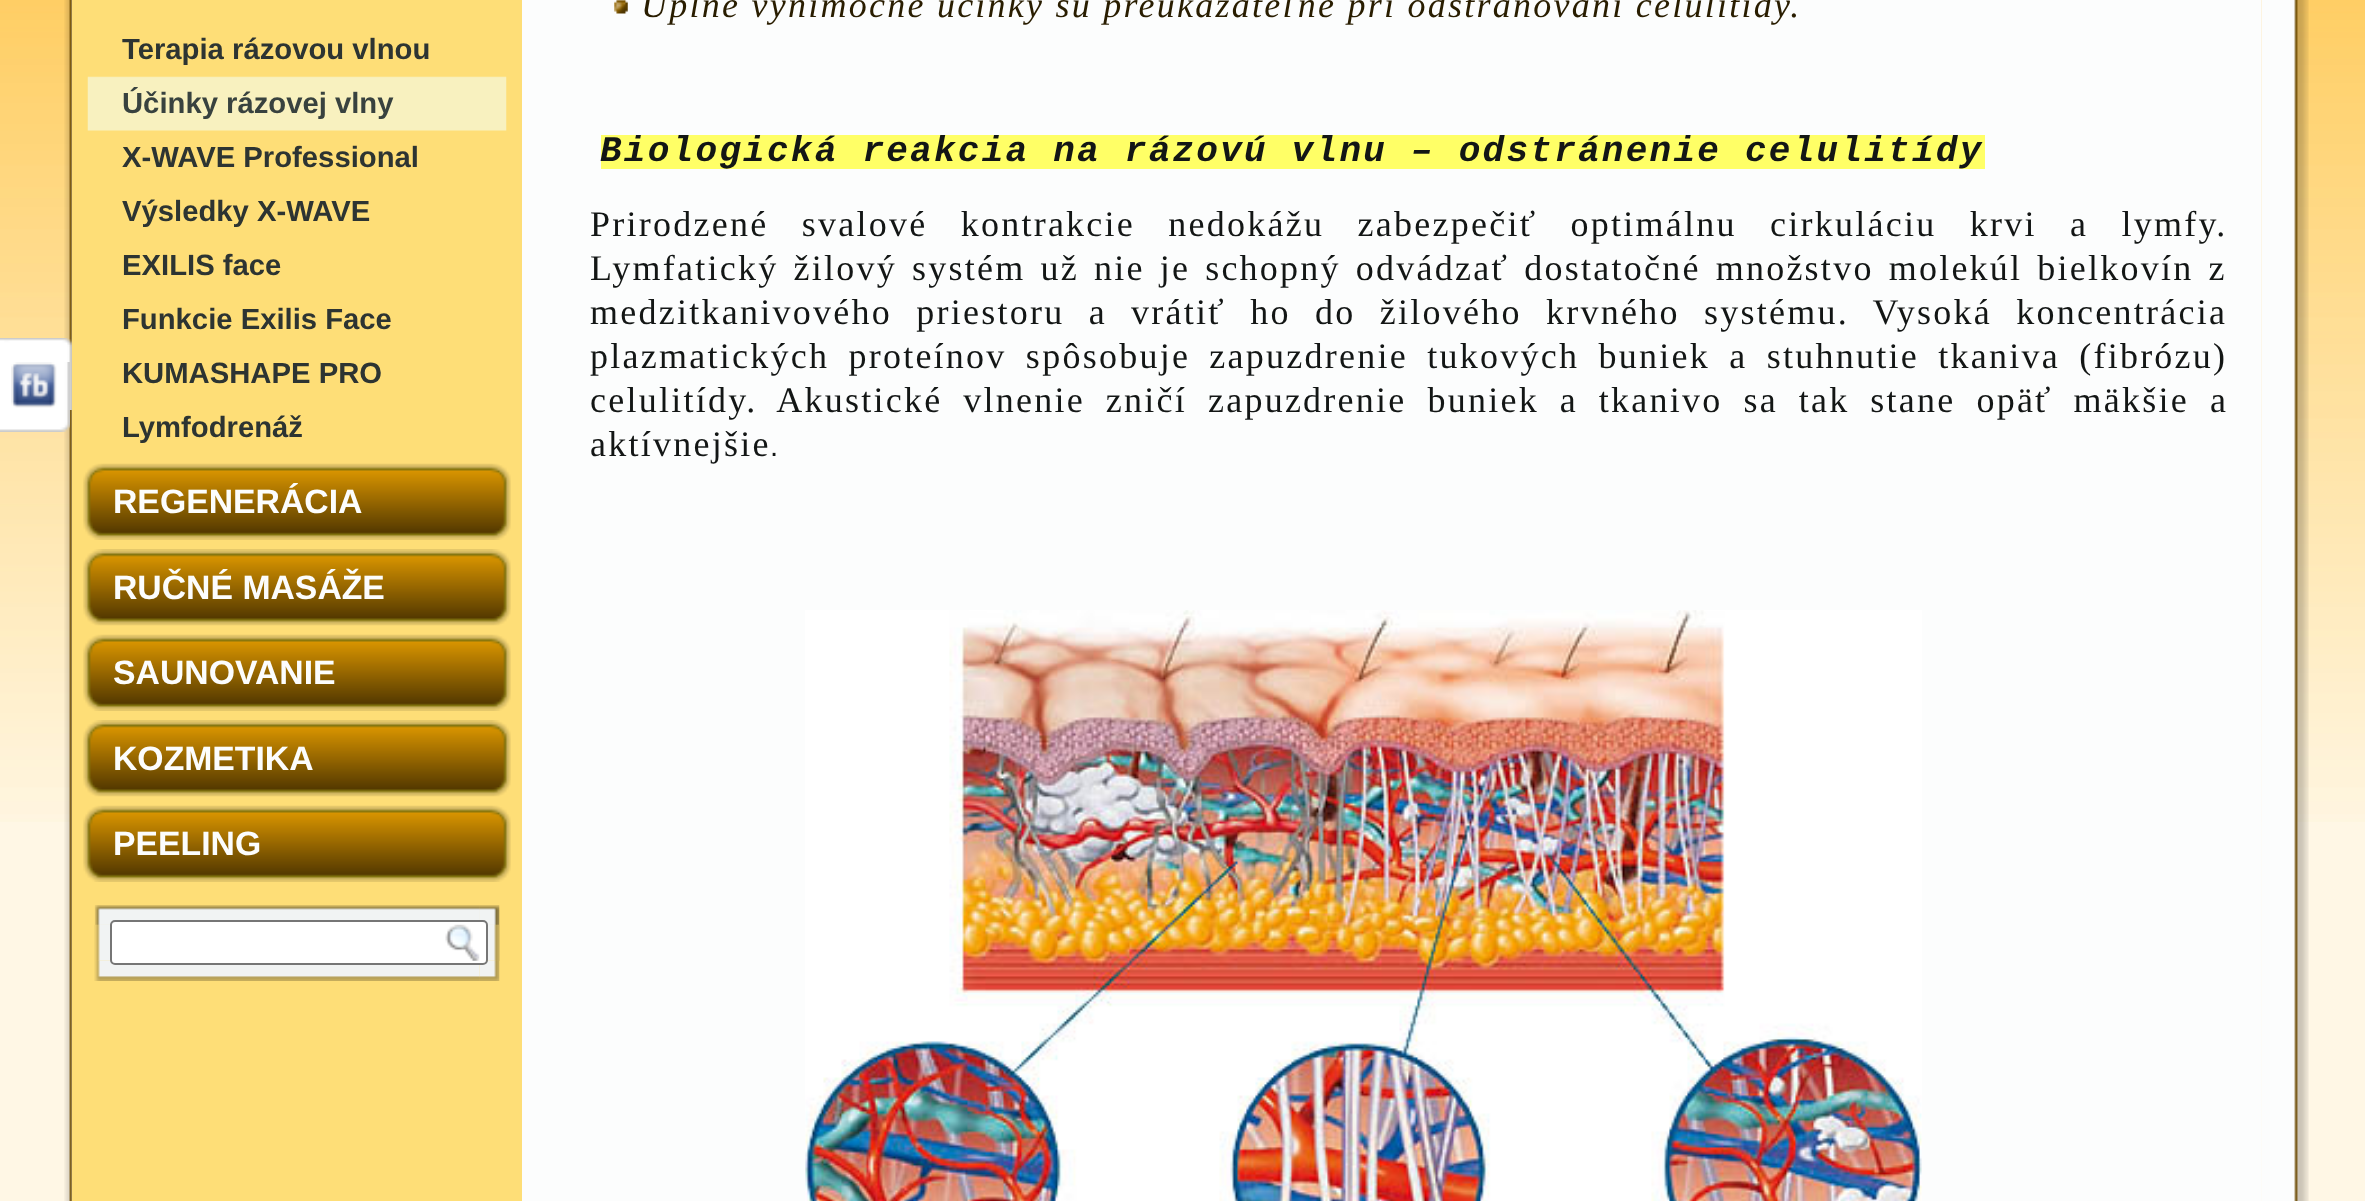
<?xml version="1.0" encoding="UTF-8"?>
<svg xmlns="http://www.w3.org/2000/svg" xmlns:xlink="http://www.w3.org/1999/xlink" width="2365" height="1201">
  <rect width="100%" height="100%" fill="#fff7e5" />
  <image x="0" y="0" width="2365" height="822" xlink:href="image1.png" />
  <image x="64" y="0" width="2198" height="1201" xlink:href="image5.png" />
  <image x="0" y="338" width="72" height="72" xlink:href="image2.png" />
  <image x="0" y="362" width="70" height="70" xlink:href="image3.png" />
  <image x="11" y="362" width="46" height="46" xlink:href="image4.png" />
  <rect x="72" width="450" height="1201" fill="#fede77" />
  <image x="87" y="76" width="420" height="55" xlink:href="image6.png" />
  <image x="83" y="463" width="403" height="77" xlink:href="image7.png" />
  <image x="486" y="463" width="25" height="77" xlink:href="image8.png" />
  <image x="83" y="549" width="403" height="77" xlink:href="image9.png" />
  <image x="486" y="549" width="25" height="77" xlink:href="image10.png" />
  <image x="83" y="634" width="403" height="77" xlink:href="image7.png" />
  <image x="486" y="634" width="25" height="77" xlink:href="image8.png" />
  <image x="83" y="720" width="403" height="77" xlink:href="image9.png" />
  <image x="486" y="720" width="25" height="77" xlink:href="image10.png" />
  <image x="83" y="805" width="403" height="77" xlink:href="image7.png" />
  <image x="486" y="805" width="25" height="77" xlink:href="image8.png" />
  <image x="94" y="905" width="386" height="76" xlink:href="image11.png" />
  <image x="95" y="905" width="385" height="20" xlink:href="image12.png" />
  <image x="487" y="924" width="13" height="37" xlink:href="image17.png" />
  <image x="479" y="905" width="21" height="76" xlink:href="image13.png" />
  <image x="479" y="905" width="21" height="20" xlink:href="image14.png" />
  <image x="94" y="924" width="17" height="37" xlink:href="image15.png" />
  <rect x="111" y="921" width="376" height="43" rx="4" fill="#ffffff" stroke="#767676" stroke-width="2" />
  <image x="445" y="924" width="35" height="37" xlink:href="image16.png" />
  <image x="614" y="0" width="14" height="14" xlink:href="image18.png" />
  <rect x="601" y="135" width="1384" height="34" fill="#ffff66" />
  <image x="805" y="610" width="1117" height="591" xlink:href="image19.png" />
  <image x="2261" y="0" width="48" height="1201" xlink:href="image20.png" />
  <text x="122" y="59" style="font-family: Liberation Sans; font-size: 29.25px; font-weight: bold; fill: #2d3432">Terapia rázovou vlnou</text>
  <text x="122" y="113" style="font-family: Liberation Sans; font-size: 29.25px; font-weight: bold; fill: #38423f">Účinky rázovej vlny</text>
  <text x="122" y="167" style="font-family: Liberation Sans; font-size: 29.25px; font-weight: bold; fill: #2d3432">X-WAVE Professional</text>
  <text x="122" y="221" style="font-family: Liberation Sans; font-size: 29.25px; font-weight: bold; fill: #2d3432">Výsledky X-WAVE</text>
  <text x="122" y="275" style="font-family: Liberation Sans; font-size: 29.25px; font-weight: bold; fill: #2d3432">EXILIS face</text>
  <text x="122" y="329" style="font-family: Liberation Sans; font-size: 29.25px; font-weight: bold; fill: #2d3432">Funkcie Exilis Face</text>
  <text x="122" y="383" style="font-family: Liberation Sans; font-size: 29.25px; font-weight: bold; fill: #2d3432">KUMASHAPE PRO</text>
  <text x="122" y="437" style="font-family: Liberation Sans; font-size: 29.25px; font-weight: bold; fill: #2d3432">Lymfodrenáž</text>
  <text x="113" y="513" style="font-family: Liberation Sans; font-size: 33.75px; font-weight: bold; fill: #fcfdfd">REGENERÁCIA</text>
  <text x="113" y="599" style="font-family: Liberation Sans; font-size: 33.75px; font-weight: bold; fill: #fcfdfd">RUČNÉ MASÁŽE</text>
  <text x="113" y="684" style="font-family: Liberation Sans; font-size: 33.75px; font-weight: bold; fill: #fcfdfd">SAUNOVANIE</text>
  <text x="113" y="770" style="font-family: Liberation Sans; font-size: 33.75px; font-weight: bold; fill: #fcfdfd">KOZMETIKA</text>
  <text x="113" y="855" style="font-family: Liberation Sans; font-size: 33.75px; font-weight: bold; fill: #fcfdfd">PEELING</text>
  <text x="641" y="17" style="font-family: Liberation Serif; font-size: 36px; font-style: italic; letter-spacing: 2.25px; fill: #291d00">Úplne výnimočné účinky sú preukázateľné pri odstraňovaní celulitídy.</text>
  <text x="600" y="161" style="font-family: Liberation Mono; font-size: 36px; font-weight: bold; font-style: italic; letter-spacing: 2.25px; fill: #131615">Biologická reakcia na rázovú vlnu – odstránenie celulitídy</text>
  <text x="590" y="236" word-spacing="22" style="font-family: Liberation Serif; font-size: 36px; letter-spacing: 2.25px; fill: #131615">Prirodzené svalové kontrakcie nedokážu zabezpečiť optimálnu cirkuláciu krvi a lymfy.</text>
  <text x="590" y="280" word-spacing="3.75" style="font-family: Liberation Serif; font-size: 36px; letter-spacing: 2.25px; fill: #131615">Lymfatický žilový systém už nie je schopný odvádzať dostatočné množstvo molekúl bielkovín z</text>
  <text x="590" y="324" word-spacing="13" style="font-family: Liberation Serif; font-size: 36px; letter-spacing: 2.25px; fill: #131615">medzitkanivového priestoru a vrátiť ho do žilového krvného systému. Vysoká koncentrácia</text>
  <text x="590" y="368" word-spacing="8" style="font-family: Liberation Serif; font-size: 36px; letter-spacing: 2.25px; fill: #131615">plazmatických proteínov spôsobuje zapuzdrenie tukových buniek a stuhnutie tkaniva (fibrózu)</text>
  <text x="590" y="412" word-spacing="9.6" style="font-family: Liberation Serif; font-size: 36px; letter-spacing: 2.25px; fill: #131615">celulitídy. Akustické vlnenie zničí zapuzdrenie buniek a tkanivo sa tak stane opäť mäkšie a</text>
  <text x="590" y="456" style="font-family: Liberation Serif; font-size: 36px; letter-spacing: 2.25px; fill: #131615">aktívnejšie</text>
  <text x="770" y="456" style="font-family: Liberation Sans; font-size: 29.25px; letter-spacing: 2.25px; fill: #131615">.</text>
</svg>
